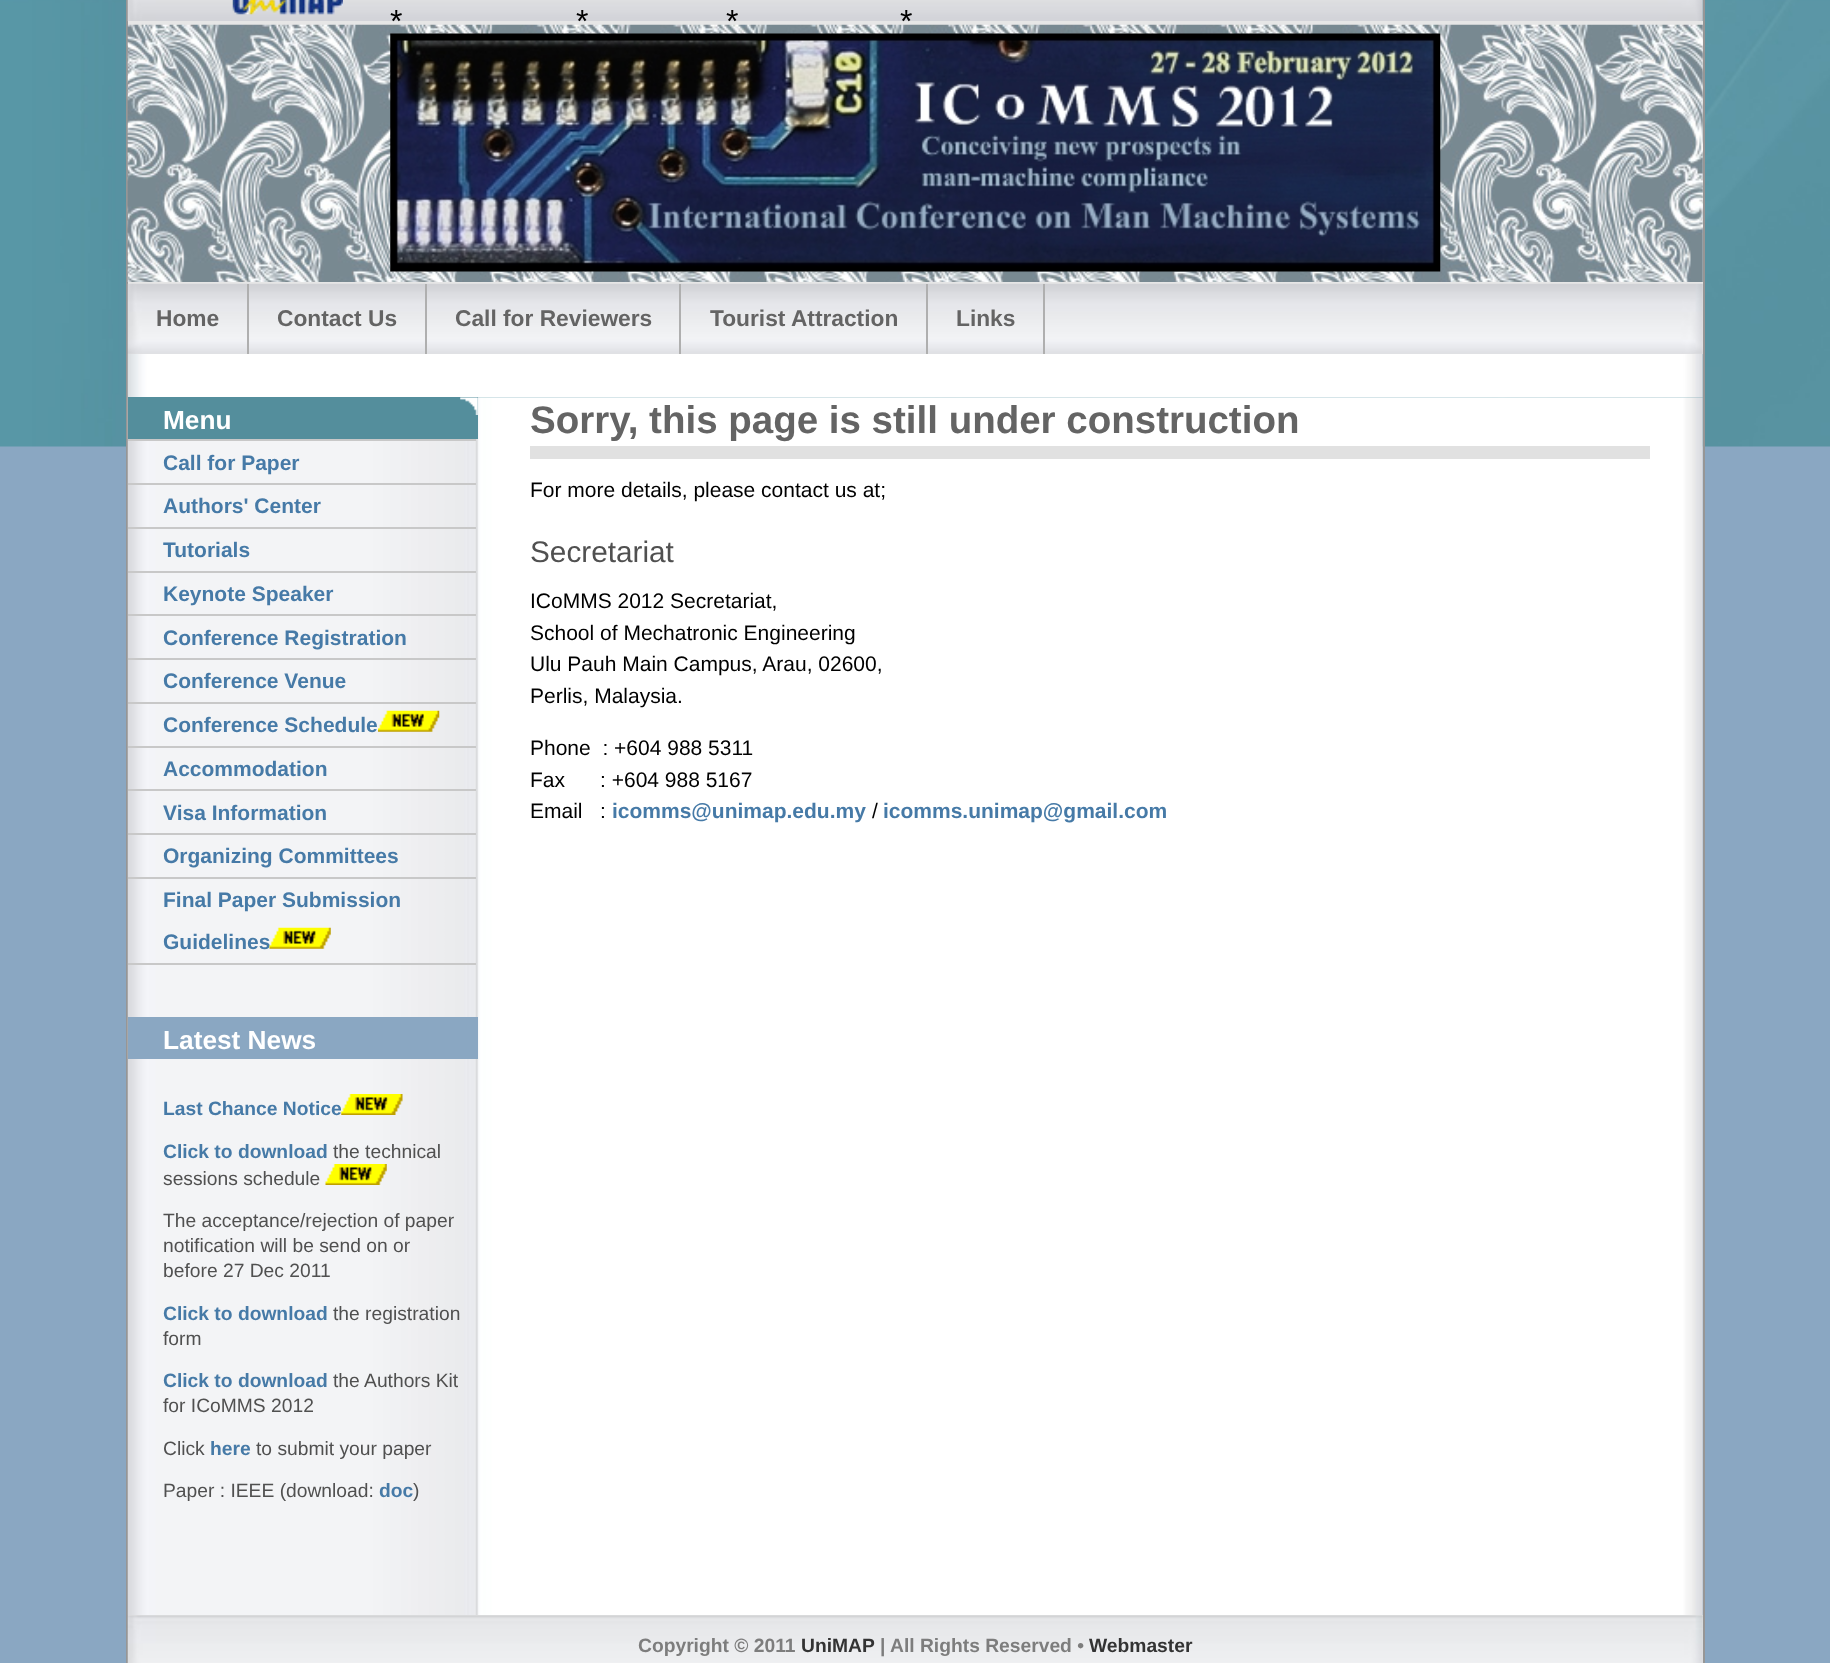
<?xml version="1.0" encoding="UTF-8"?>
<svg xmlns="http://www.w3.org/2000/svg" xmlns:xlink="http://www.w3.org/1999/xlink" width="1830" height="1663">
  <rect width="100%" height="100%" fill="#8aa7c2" />
  <image x="0" y="0" width="1830" height="447" xlink:href="image1.png" />
  <rect x="127" y="-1" width="1577" height="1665" fill="none" stroke="#969696" stroke-width="2" />
  <image x="127" y="0" width="1576" height="22" xlink:href="image2.png" />
  <image x="232" y="0" width="111" height="15" xlink:href="image3.png" />
  <rect x="128" y="21" width="1575" height="263" fill="#e6e6e6" />
  <image x="127" y="353" width="1576" height="45" xlink:href="image5.png" />
  <rect x="128" y="284" width="1575" height="70" fill="#e1e1e1" />
  <image x="127" y="283" width="1576" height="71" xlink:href="image4.png" />
  <rect x="247" y="284" width="2" height="70" fill="#afafaf" />
  <rect x="425" y="284" width="2" height="70" fill="#afafaf" />
  <rect x="679" y="284" width="2" height="70" fill="#afafaf" />
  <rect x="926" y="284" width="2" height="70" fill="#afafaf" />
  <rect x="1043" y="284" width="2" height="70" fill="#afafaf" />
  <image x="127" y="24" width="1576" height="258" xlink:href="image6.png" />
  <image x="390" y="33" width="1051" height="239" xlink:href="image7.png" />
  <image x="127" y="397" width="1576" height="1219" xlink:href="image8.png" />
  <rect x="128" y="397" width="350" height="42" fill="#548e9c" />
  <image x="460" y="397" width="18" height="18" xlink:href="image9.png" />
  <rect x="128" y="963" width="348" height="2" fill="#c8c8c8" />
  <rect x="128" y="439" width="348" height="2" fill="#c8c8c8" />
  <rect x="128" y="483" width="348" height="2" fill="#c8c8c8" />
  <rect x="128" y="527" width="348" height="2" fill="#c8c8c8" />
  <rect x="128" y="571" width="348" height="2" fill="#c8c8c8" />
  <rect x="128" y="614" width="348" height="2" fill="#c8c8c8" />
  <rect x="128" y="658" width="348" height="2" fill="#c8c8c8" />
  <rect x="128" y="702" width="348" height="2" fill="#c8c8c8" />
  <image x="378" y="710" width="62" height="22" xlink:href="image10.png" />
  <rect x="128" y="746" width="348" height="2" fill="#c8c8c8" />
  <rect x="128" y="789" width="348" height="2" fill="#c8c8c8" />
  <rect x="128" y="833" width="348" height="2" fill="#c8c8c8" />
  <rect x="128" y="877" width="348" height="2" fill="#c8c8c8" />
  <rect x="128" y="1017" width="350" height="42" fill="#8aa7c2" />
  <image x="341" y="1094" width="62" height="21" xlink:href="image12.png" />
  <image x="325" y="1164" width="62" height="21" xlink:href="image13.png" />
  <rect x="530" y="446" width="1120" height="13" fill="#e1e1e1" />
  <rect x="128" y="1615" width="1575" height="48" fill="#e1e1e1" />
  <image x="127" y="1615" width="1576" height="48" xlink:href="image14.png" />
  <text x="390" y="32" style="font-family: Liberation Sans; font-size: 32px; fill: #000000">*</text>
  <text x="576" y="32" style="font-family: Liberation Sans; font-size: 32px; fill: #000000">*</text>
  <text x="726" y="32" style="font-family: Liberation Sans; font-size: 32px; fill: #000000">*</text>
  <text x="900" y="32" style="font-family: Liberation Sans; font-size: 32px; fill: #000000">*</text>
  <text x="156" y="326" style="font-family: Liberation Sans; font-size: 22.75px; font-weight: bold; fill: #646464">Home</text>
  <text x="277" y="326" style="font-family: Liberation Sans; font-size: 22.75px; font-weight: bold; fill: #646464">Contact Us</text>
  <text x="455" y="326" style="font-family: Liberation Sans; font-size: 22.75px; font-weight: bold; fill: #646464">Call for Reviewers</text>
  <text x="710" y="326" style="font-family: Liberation Sans; font-size: 22.75px; font-weight: bold; fill: #646464">Tourist Attraction</text>
  <text x="956" y="326" style="font-family: Liberation Sans; font-size: 22.75px; font-weight: bold; fill: #646464">Links</text>
  <text x="163" y="429" style="font-family: Liberation Sans; font-size: 26.25px; font-weight: bold; fill: #ffffff">Menu</text>
  <text x="163" y="470" style="font-family: Liberation Sans; font-size: 21px; font-weight: bold; fill: #467aa7">Call for Paper</text>
  <text x="163" y="513" style="font-family: Liberation Sans; font-size: 21px; font-weight: bold; fill: #467aa7">Authors' Center</text>
  <text x="163" y="557" style="font-family: Liberation Sans; font-size: 21px; font-weight: bold; fill: #467aa7">Tutorials</text>
  <text x="163" y="601" style="font-family: Liberation Sans; font-size: 21px; font-weight: bold; fill: #467aa7">Keynote Speaker</text>
  <text x="163" y="645" style="font-family: Liberation Sans; font-size: 21px; font-weight: bold; fill: #467aa7">Conference Registration</text>
  <text x="163" y="688" style="font-family: Liberation Sans; font-size: 21px; font-weight: bold; fill: #467aa7">Conference Venue</text>
  <text x="163" y="732" style="font-family: Liberation Sans; font-size: 21px; font-weight: bold; fill: #467aa7">Conference Schedule</text>
  <text x="163" y="776" style="font-family: Liberation Sans; font-size: 21px; font-weight: bold; fill: #467aa7">Accommodation</text>
  <text x="163" y="820" style="font-family: Liberation Sans; font-size: 21px; font-weight: bold; fill: #467aa7">Visa Information</text>
  <text x="163" y="863" style="font-family: Liberation Sans; font-size: 21px; font-weight: bold; fill: #467aa7">Organizing Committees</text>
  <text x="163" y="907" style="font-family: Liberation Sans; font-size: 21px; font-weight: bold; fill: #467aa7">Final Paper Submission</text>
  <text x="163" y="949" style="font-family: Liberation Sans; font-size: 21px; font-weight: bold; fill: #467aa7">Guidelines</text>
  <image x="269" y="927" width="62" height="22" xlink:href="image11.png" />
  <text x="163" y="1049" style="font-family: Liberation Sans; font-size: 26.25px; font-weight: bold; fill: #ffffff">Latest News</text>
  <text x="163" y="1115" style="font-family: Liberation Sans; font-size: 19.25px; font-weight: bold; fill: #467aa7">Last Chance Notice</text>
  <text x="163" y="1158" style="font-family: Liberation Sans; font-size: 19.25px; font-weight: bold; fill: #467aa7">Click to download</text>
  <text x="333" y="1158" style="font-family: Liberation Sans; font-size: 19.25px; fill: #505050">the technical</text>
  <text x="163" y="1185" style="font-family: Liberation Sans; font-size: 19.25px; fill: #505050">sessions schedule</text>
  <text x="163" y="1227" style="font-family: Liberation Sans; font-size: 19.25px; fill: #505050">The acceptance/rejection of paper</text>
  <text x="163" y="1252" style="font-family: Liberation Sans; font-size: 19.25px; fill: #505050">notification will be send on or</text>
  <text x="163" y="1277" style="font-family: Liberation Sans; font-size: 19.25px; fill: #505050">before 27 Dec 2011</text>
  <text x="163" y="1320" style="font-family: Liberation Sans; font-size: 19.25px; font-weight: bold; fill: #467aa7">Click to download</text>
  <text x="333" y="1320" style="font-family: Liberation Sans; font-size: 19.25px; fill: #505050">the registration</text>
  <text x="163" y="1345" style="font-family: Liberation Sans; font-size: 19.25px; fill: #505050">form</text>
  <text x="163" y="1387" style="font-family: Liberation Sans; font-size: 19.25px; font-weight: bold; fill: #467aa7">Click to download</text>
  <text x="333" y="1387" style="font-family: Liberation Sans; font-size: 19.25px; fill: #505050">the Authors Kit</text>
  <text x="163" y="1412" style="font-family: Liberation Sans; font-size: 19.25px; fill: #505050">for ICoMMS 2012</text>
  <text x="163" y="1455" style="font-family: Liberation Sans; font-size: 19.25px; fill: #505050">Click</text>
  <text x="210" y="1455" style="font-family: Liberation Sans; font-size: 19.25px; font-weight: bold; fill: #467aa7">here</text>
  <text x="256" y="1455" style="font-family: Liberation Sans; font-size: 19.25px; fill: #505050">to submit your paper</text>
  <text x="163" y="1497" style="font-family: Liberation Sans; font-size: 19.25px; fill: #505050">Paper : IEEE (download:</text>
  <text x="379" y="1497" style="font-family: Liberation Sans; font-size: 19.25px; font-weight: bold; fill: #467aa7">doc</text>
  <text x="413" y="1497" style="font-family: Liberation Sans; font-size: 19.25px; fill: #505050">)</text>
  <text x="530" y="433" style="font-family: Liberation Sans; font-size: 38.5px; font-weight: bold; fill: #646464">Sorry, this page is still under construction</text>
  <text x="530" y="497" style="font-family: Liberation Sans; font-size: 21px; fill: #000000">For more details, please contact us at;</text>
  <text x="530" y="562" style="font-family: Liberation Sans; font-size: 29.75px; fill: #505050">Secretariat</text>
  <text x="530" y="608" style="font-family: Liberation Sans; font-size: 21px; fill: #000000">ICoMMS 2012 Secretariat,</text>
  <text x="530" y="640" style="font-family: Liberation Sans; font-size: 21px; fill: #000000">School of Mechatronic Engineering</text>
  <text x="530" y="671" style="font-family: Liberation Sans; font-size: 21px; fill: #000000">Ulu Pauh Main Campus, Arau, 02600,</text>
  <text x="530" y="703" style="font-family: Liberation Sans; font-size: 21px; fill: #000000">Perlis, Malaysia.</text>
  <text x="530" y="755" style="font-family: Liberation Sans; font-size: 21px; fill: #000000" xml:space="preserve">Phone  : +604 988 5311</text>
  <text x="530" y="787" style="font-family: Liberation Sans; font-size: 21px; fill: #000000" xml:space="preserve">Fax      : +604 988 5167</text>
  <text x="530" y="818" style="font-family: Liberation Sans; font-size: 21px; fill: #000000" xml:space="preserve">Email   :</text>
  <text x="612" y="818" style="font-family: Liberation Sans; font-size: 21px; font-weight: bold; fill: #467aa7">icomms@unimap.edu.my</text>
  <text x="872" y="818" style="font-family: Liberation Sans; font-size: 21px; fill: #000000">/</text>
  <text x="883" y="818" style="font-family: Liberation Sans; font-size: 21px; font-weight: bold; fill: #467aa7">icomms.unimap@gmail.com</text>
  <text x="638" y="1652" style="font-family: Liberation Sans; font-size: 19.25px; font-weight: bold; fill: #7d7d7d">Copyright © 2011</text>
  <text x="801" y="1652" style="font-family: Liberation Sans; font-size: 19.25px; font-weight: bold; fill: #333333">UniMAP</text>
  <text x="880" y="1652" style="font-family: Liberation Sans; font-size: 19.25px; font-weight: bold; fill: #7d7d7d">| All Rights Reserved •</text>
  <text x="1089" y="1652" style="font-family: Liberation Sans; font-size: 19.25px; font-weight: bold; fill: #333333">Webmaster</text>
</svg>
